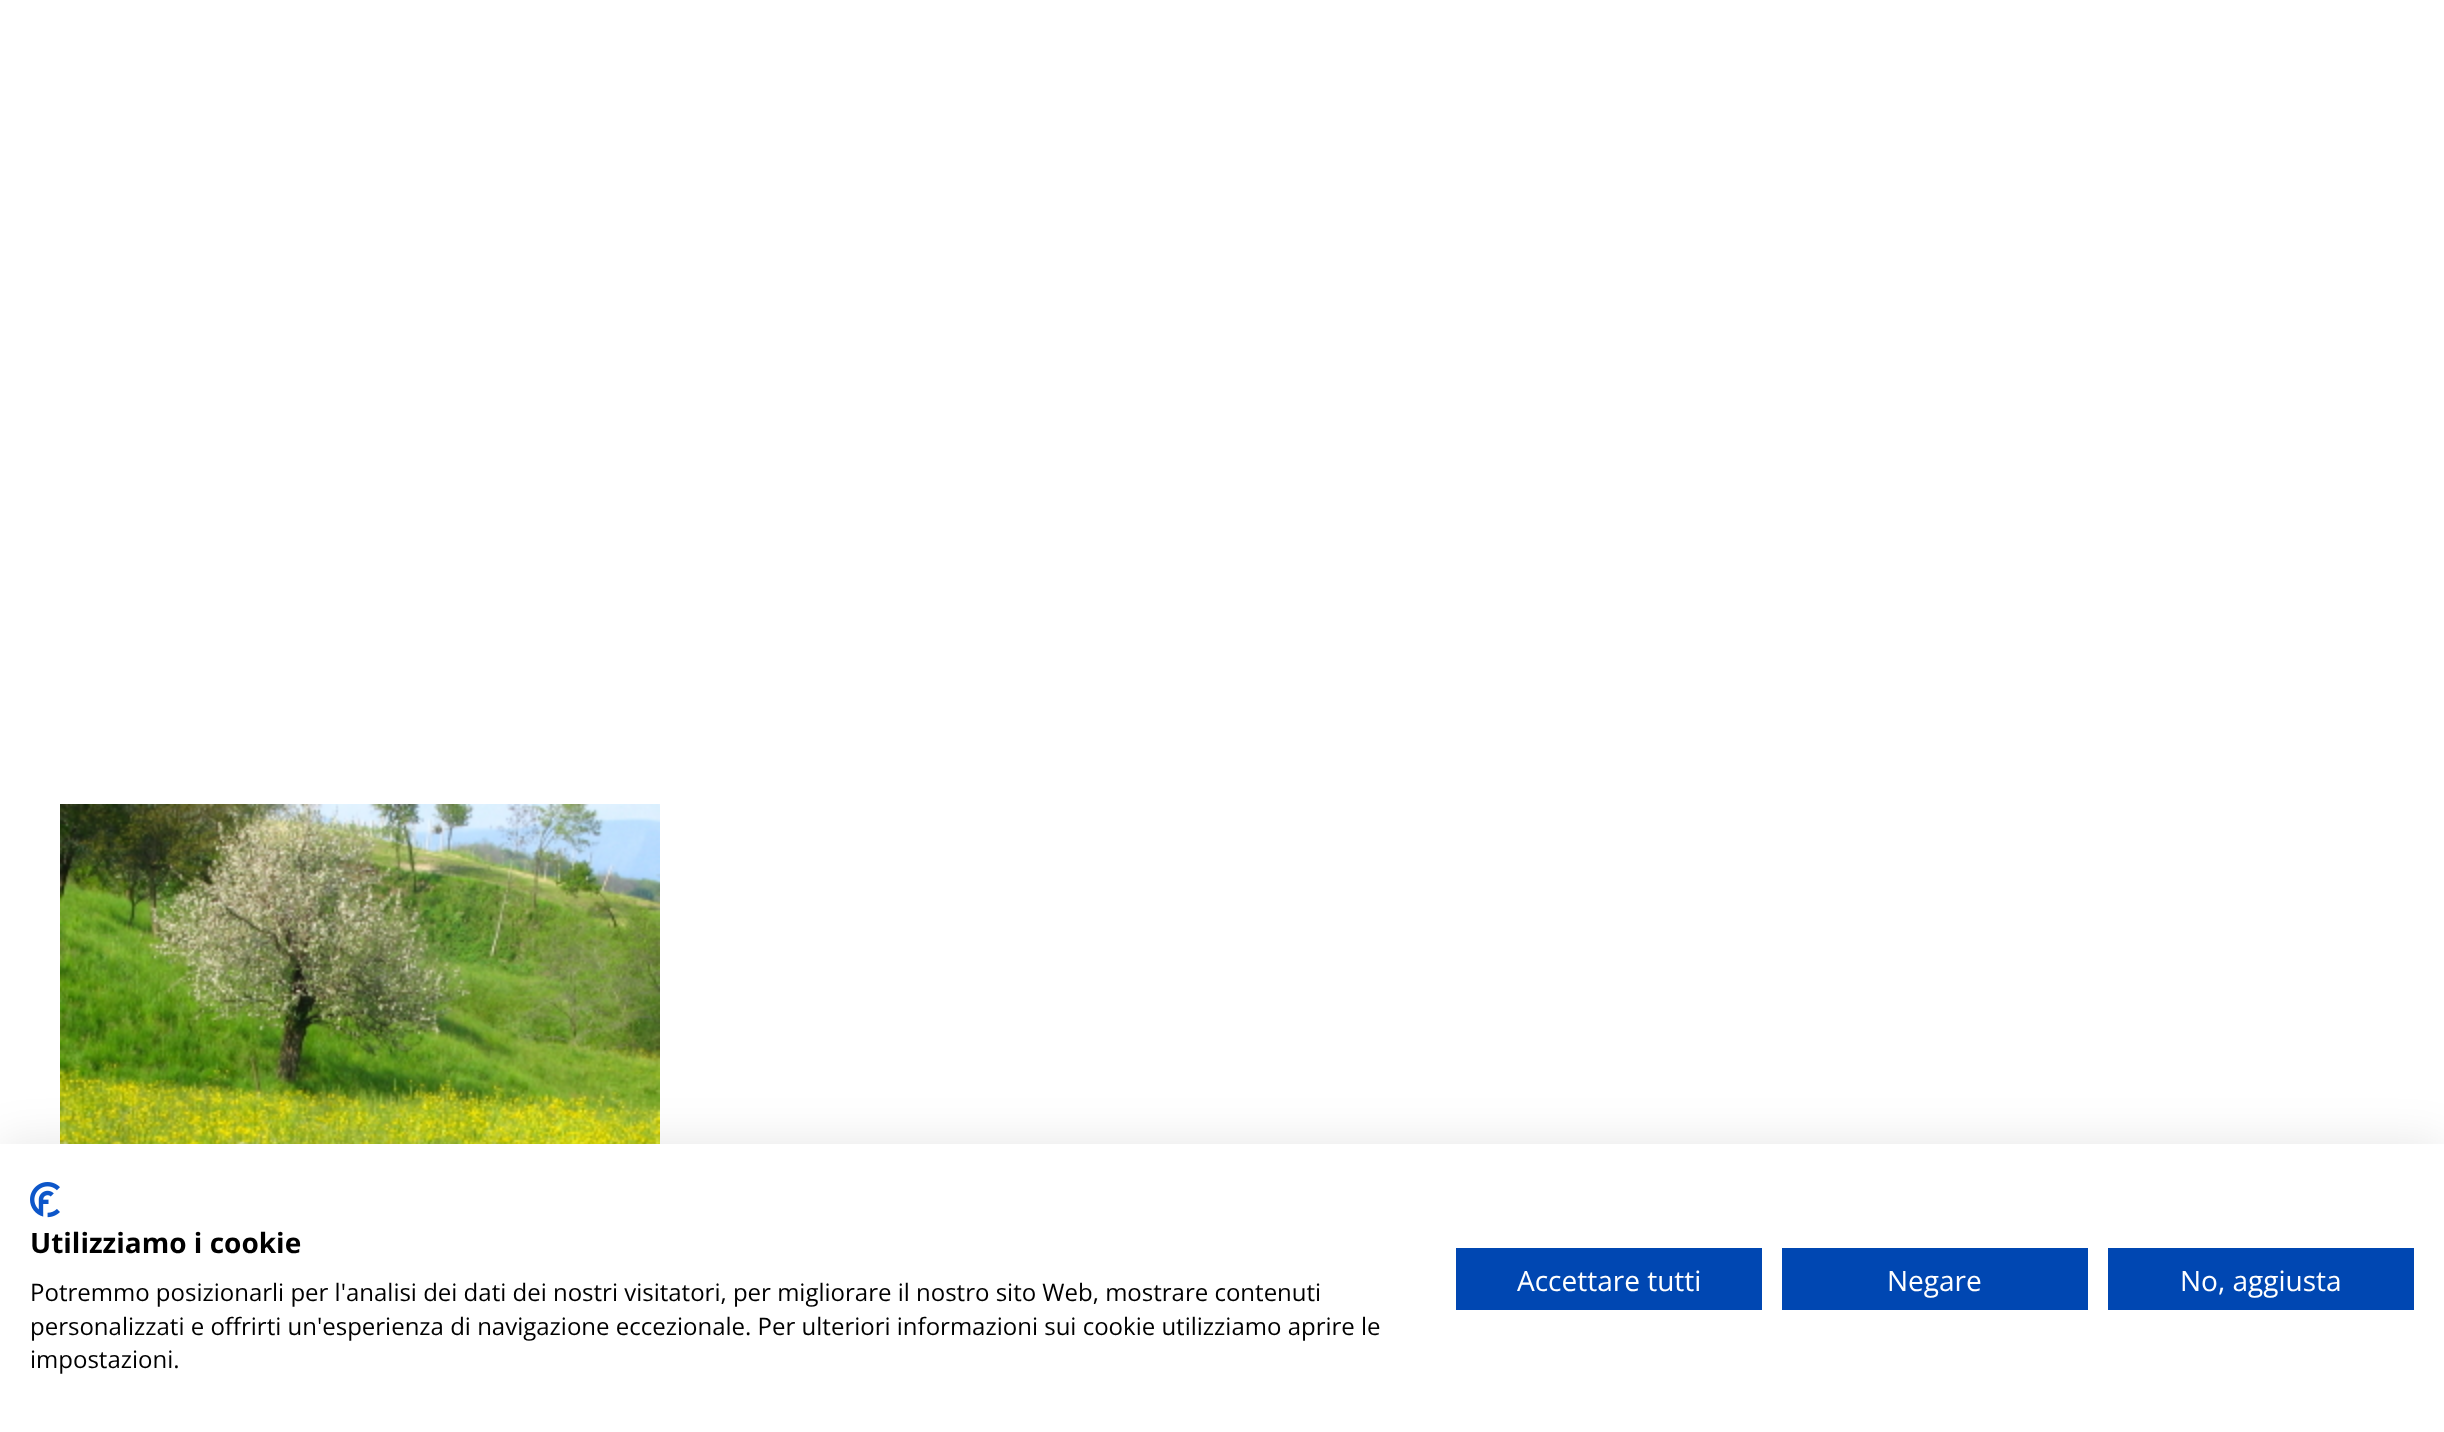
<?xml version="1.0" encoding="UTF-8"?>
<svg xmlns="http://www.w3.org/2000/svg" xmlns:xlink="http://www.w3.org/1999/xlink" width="2444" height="1432">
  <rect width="100%" height="100%" fill="#ffffff" />
  <image x="60" y="804" width="600" height="340" xlink:href="image1.png" />
  <rect y="1144" width="2444" height="288" fill="#000000" fill-opacity="0.1" filter="blur(24px)" />
  <rect y="1144" width="2444" height="288" fill="#ffffff" />
  <image x="30" y="1182" width="30" height="36" xlink:href="image2.png" />
  <rect x="1456" y="1248" width="306" height="62" fill="#0047b2" />
  <rect x="1782" y="1248" width="306" height="62" fill="#0047b2" />
  <rect x="2108" y="1248" width="306" height="62" fill="#0047b2" />
  <text x="30" y="1253" style="font-family: Open Sans; font-size: 28px; font-weight: bold; fill: #000000">Utilizziamo i cookie</text>
  <text x="30" y="1301" style="font-family: Open Sans; font-size: 24px; fill: #000000">Potremmo posizionarli per l'analisi dei dati dei nostri visitatori, per migliorare il nostro sito Web, mostrare contenuti</text>
  <text x="30" y="1335" style="font-family: Open Sans; font-size: 24px; fill: #000000">personalizzati e offrirti un'esperienza di navigazione eccezionale. Per ulteriori informazioni sui cookie utilizziamo aprire le</text>
  <text x="30" y="1368" style="font-family: Open Sans; font-size: 24px; fill: #000000">impostazioni.</text>
  <text x="1517" y="1291" style="font-family: Open Sans; font-size: 28px; fill: #ffffff">Accettare tutti</text>
  <text x="1887" y="1291" style="font-family: Open Sans; font-size: 28px; fill: #ffffff">Negare</text>
  <text x="2180" y="1291" style="font-family: Open Sans; font-size: 28px; fill: #ffffff">No, aggiusta</text>
</svg>
